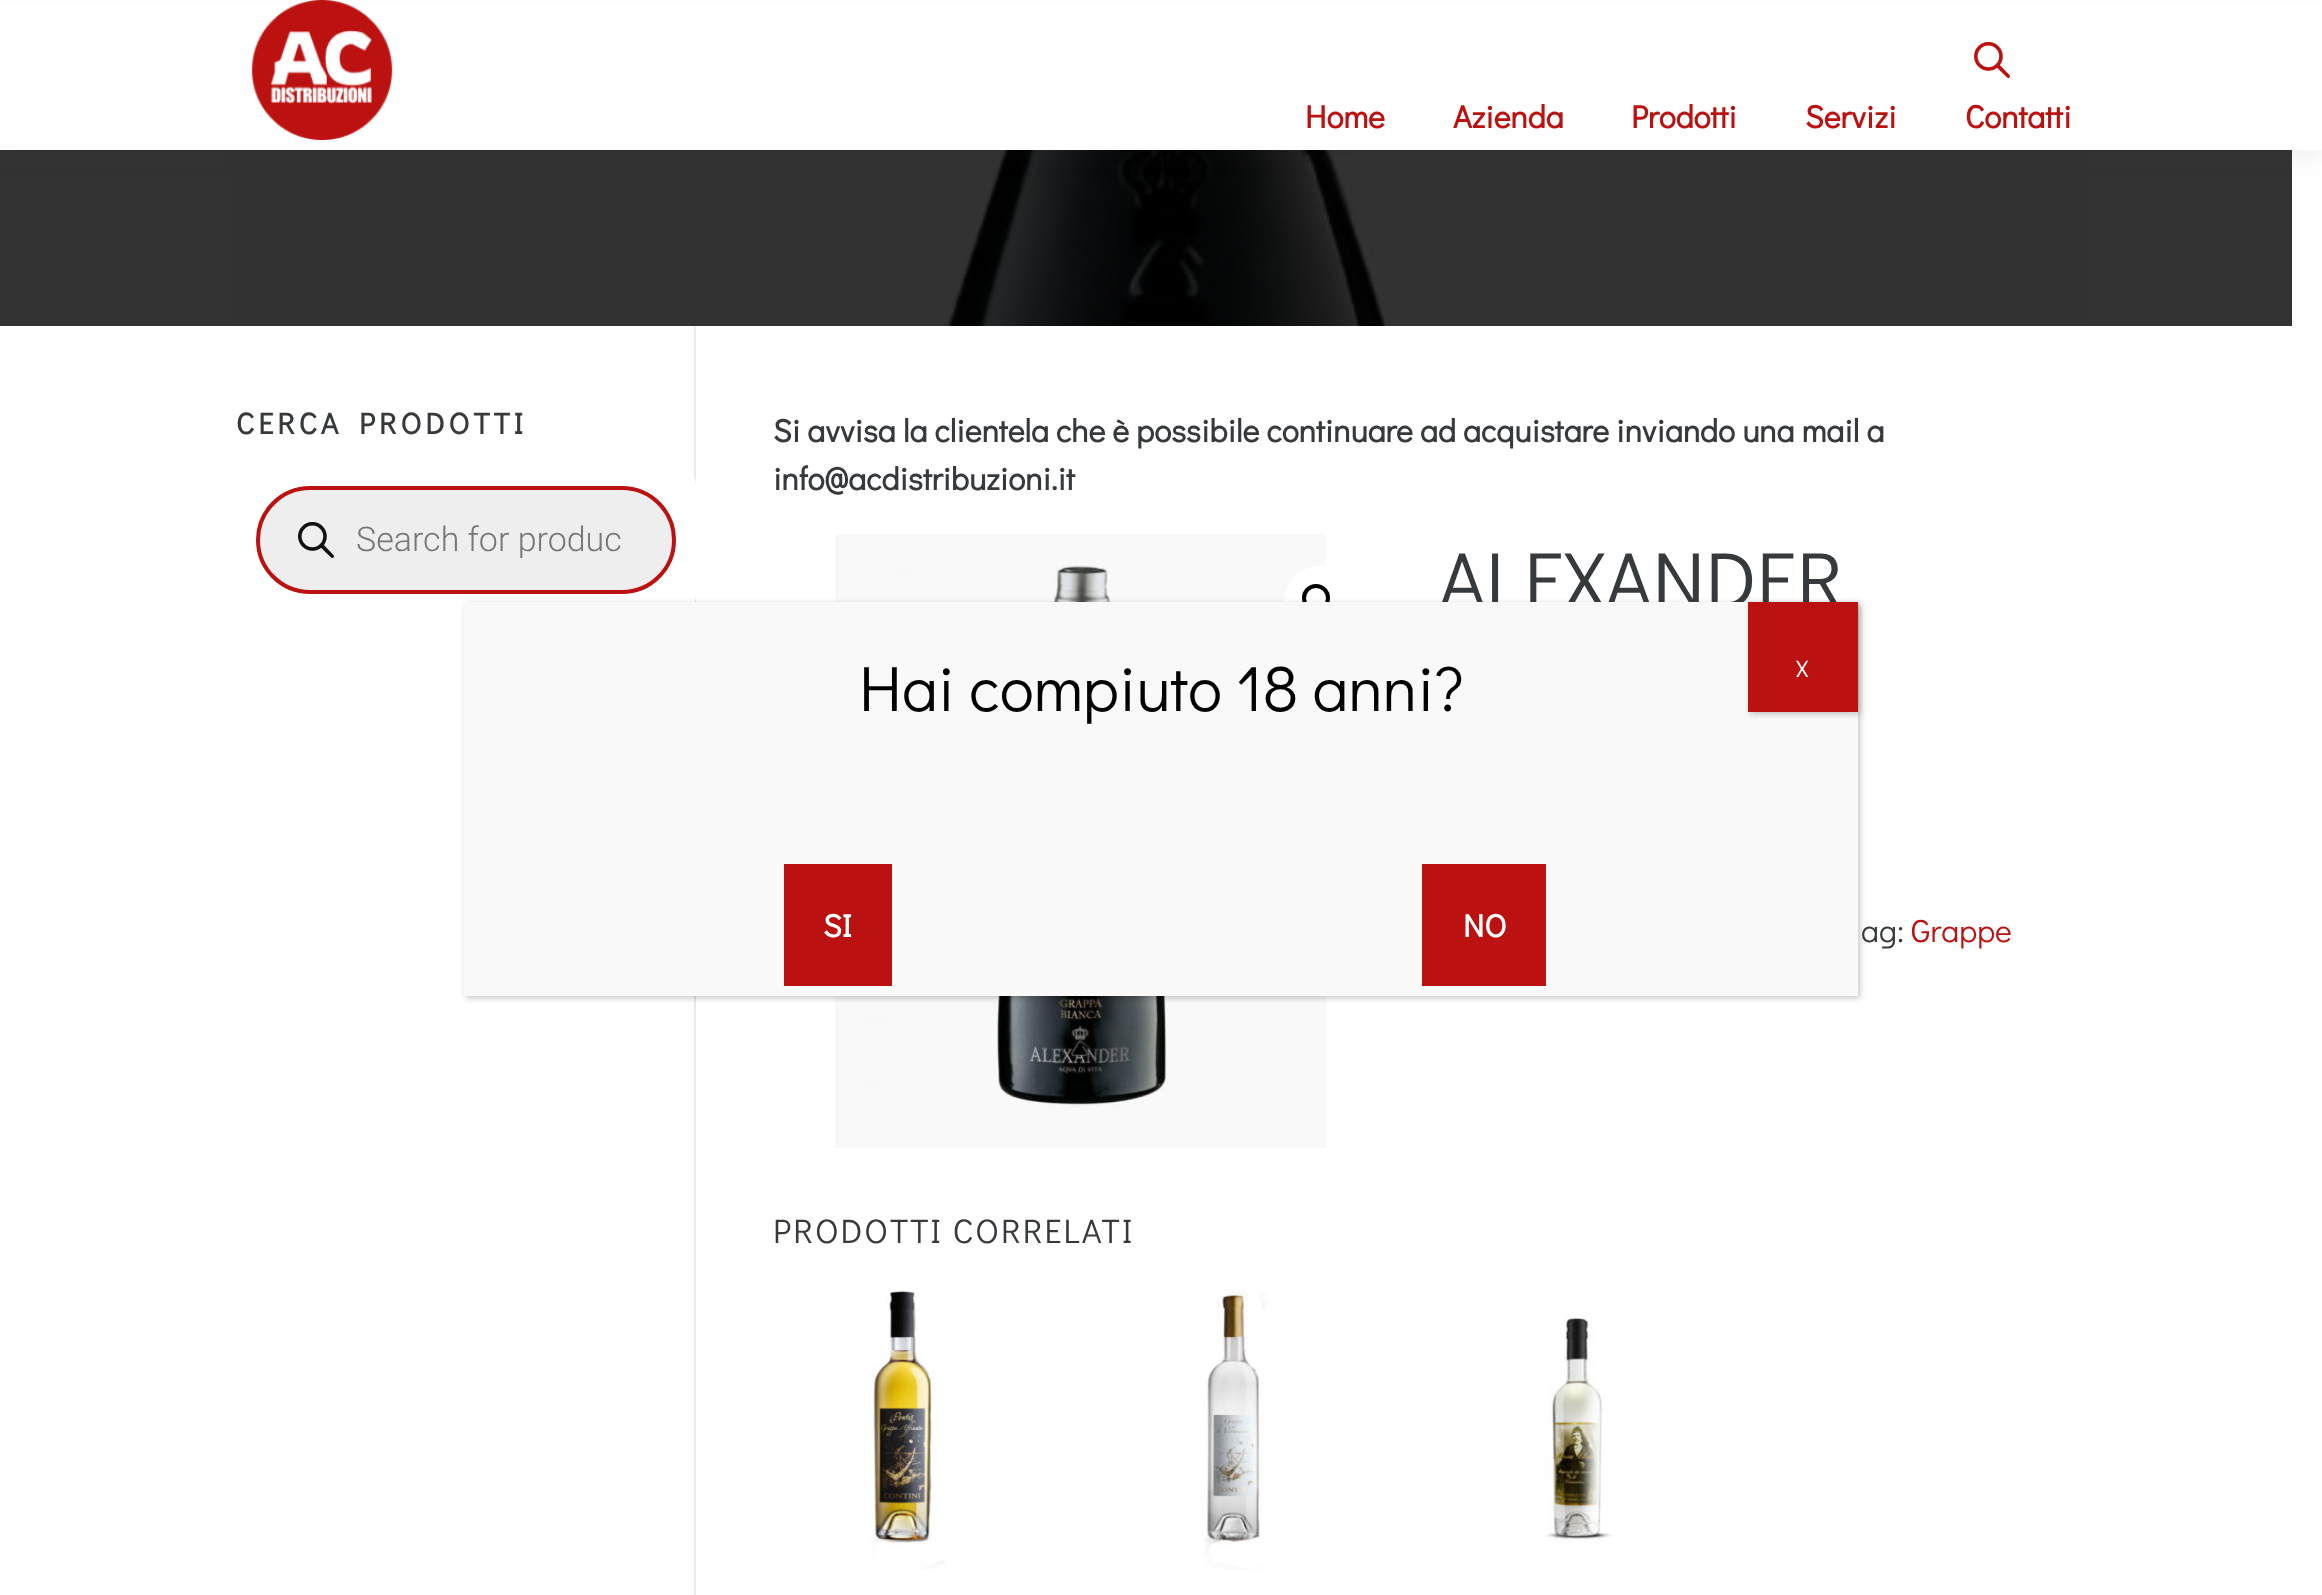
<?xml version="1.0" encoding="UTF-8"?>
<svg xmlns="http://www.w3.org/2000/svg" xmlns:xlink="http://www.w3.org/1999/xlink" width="2322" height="1595">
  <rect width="100%" height="100%" fill="#ffffff" />
  <image x="0" y="150" width="2292" height="176" xlink:href="image3.png" />
  <rect y="10" width="2322" height="150" fill="#323232" fill-opacity="0.06" filter="blur(10px)" />
  <rect y="2" width="2322" height="148" fill="#ffffff" />
  <image x="251" y="0" width="142" height="140" xlink:href="image1.png" />
  <image x="1974" y="42" width="36" height="36" xlink:href="image2.png" />
  <rect x="694" y="326" width="2" height="1269" fill="#e9e9e9" />
  <rect x="236" y="466" width="460" height="148" rx="20" fill="#ffffff" />
  <rect x="258" y="488" width="416" height="104" rx="52" fill="#eeeeee" stroke="#bc1111" stroke-width="4" />
  <image x="298" y="522" width="36" height="36" xlink:href="image4.png" />
  <image x="835" y="534" width="491" height="614" xlink:href="image5.png" />
  <circle cx="1320" cy="602" r="36" fill="#ffffff" />
  <circle cx="1316" cy="598" r="12" fill="none" stroke="#000000" stroke-width="4" />
  <image x="867" y="1290" width="78" height="279" xlink:href="image6.png" />
  <image x="1204" y="1290" width="64" height="279" xlink:href="image7.png" />
  <image x="1541" y="1313" width="71" height="228" xlink:href="image8.png" />
  <rect x="466" y="604" width="1394" height="394" fill="#020202" fill-opacity="0.23" filter="blur(3px)" />
  <text x="1305" y="128" style="font-family: Didact Gothic; font-size: 32px; font-weight: bold; fill: #bc1111">Home</text>
  <text x="1453" y="128" style="font-family: Didact Gothic; font-size: 32px; font-weight: bold; fill: #bc1111">Azienda</text>
  <text x="1631" y="128" style="font-family: Didact Gothic; font-size: 32px; font-weight: bold; fill: #bc1111">Prodotti</text>
  <text x="1805" y="128" style="font-family: Didact Gothic; font-size: 32px; font-weight: bold; fill: #bc1111">Servizi</text>
  <text x="1965" y="128" style="font-family: Didact Gothic; font-size: 32px; font-weight: bold; fill: #bc1111">Contatti</text>
  <text x="236" y="434" style="font-family: Didact Gothic; font-size: 30px; font-weight: bold; letter-spacing: 4px; fill: #373a3c">CERCA PRODOTTI</text>
  <text x="356" y="551" style="font-family: Roboto; font-size: 34px; font-weight: 300; fill: #777777">Search for produc</text>
  <text x="773" y="442" style="font-family: Didact Gothic; font-size: 32px; font-weight: bold; fill: #373a3c">Si avvisa la clientela che è possibile continuare ad acquistare inviando una mail a</text>
  <text x="773" y="490" style="font-family: Didact Gothic; font-size: 32px; font-weight: bold; fill: #373a3c">info@acdistribuzioni.it</text>
  <text x="1439" y="608" style="font-family: Didact Gothic; font-size: 80px; fill: #373a3c">ALEXANDER</text>
  <text x="1861" y="942" style="font-family: Didact Gothic; font-size: 32px; fill: #373a3c">ag:</text>
  <text x="1911" y="942" style="font-family: Didact Gothic; font-size: 32px; fill: #bc1111">Grappe</text>
  <text x="773" y="1243" style="font-family: Didact Gothic; font-size: 34px; letter-spacing: 2px; fill: #373a3c">PRODOTTI CORRELATI</text>
  <rect x="464" y="602" width="1394" height="394" fill="#f9f9f9" />
  <text x="859" y="711" style="font-family: Didact Gothic; font-size: 64px; fill: #000000">Hai compiuto 18 anni?</text>
  <rect x="1750" y="604" width="110" height="110" fill="#020202" fill-opacity="0.23" filter="blur(3px)" />
  <rect x="1748" y="602" width="110" height="110" fill="#bc1111" />
  <text x="1796" y="677" style="font-family: Didact Gothic; font-size: 24px; fill: #ffffff">X</text>
  <rect x="784" y="864" width="108" height="122" fill="#bc1111" />
  <text x="823" y="937" style="font-family: Didact Gothic; font-size: 32px; font-weight: bold; fill: #ffffff">SI</text>
  <rect x="1422" y="864" width="124" height="122" fill="#bc1111" />
  <text x="1463" y="937" style="font-family: Didact Gothic; font-size: 32px; font-weight: bold; fill: #ffffff">NO</text>
</svg>
